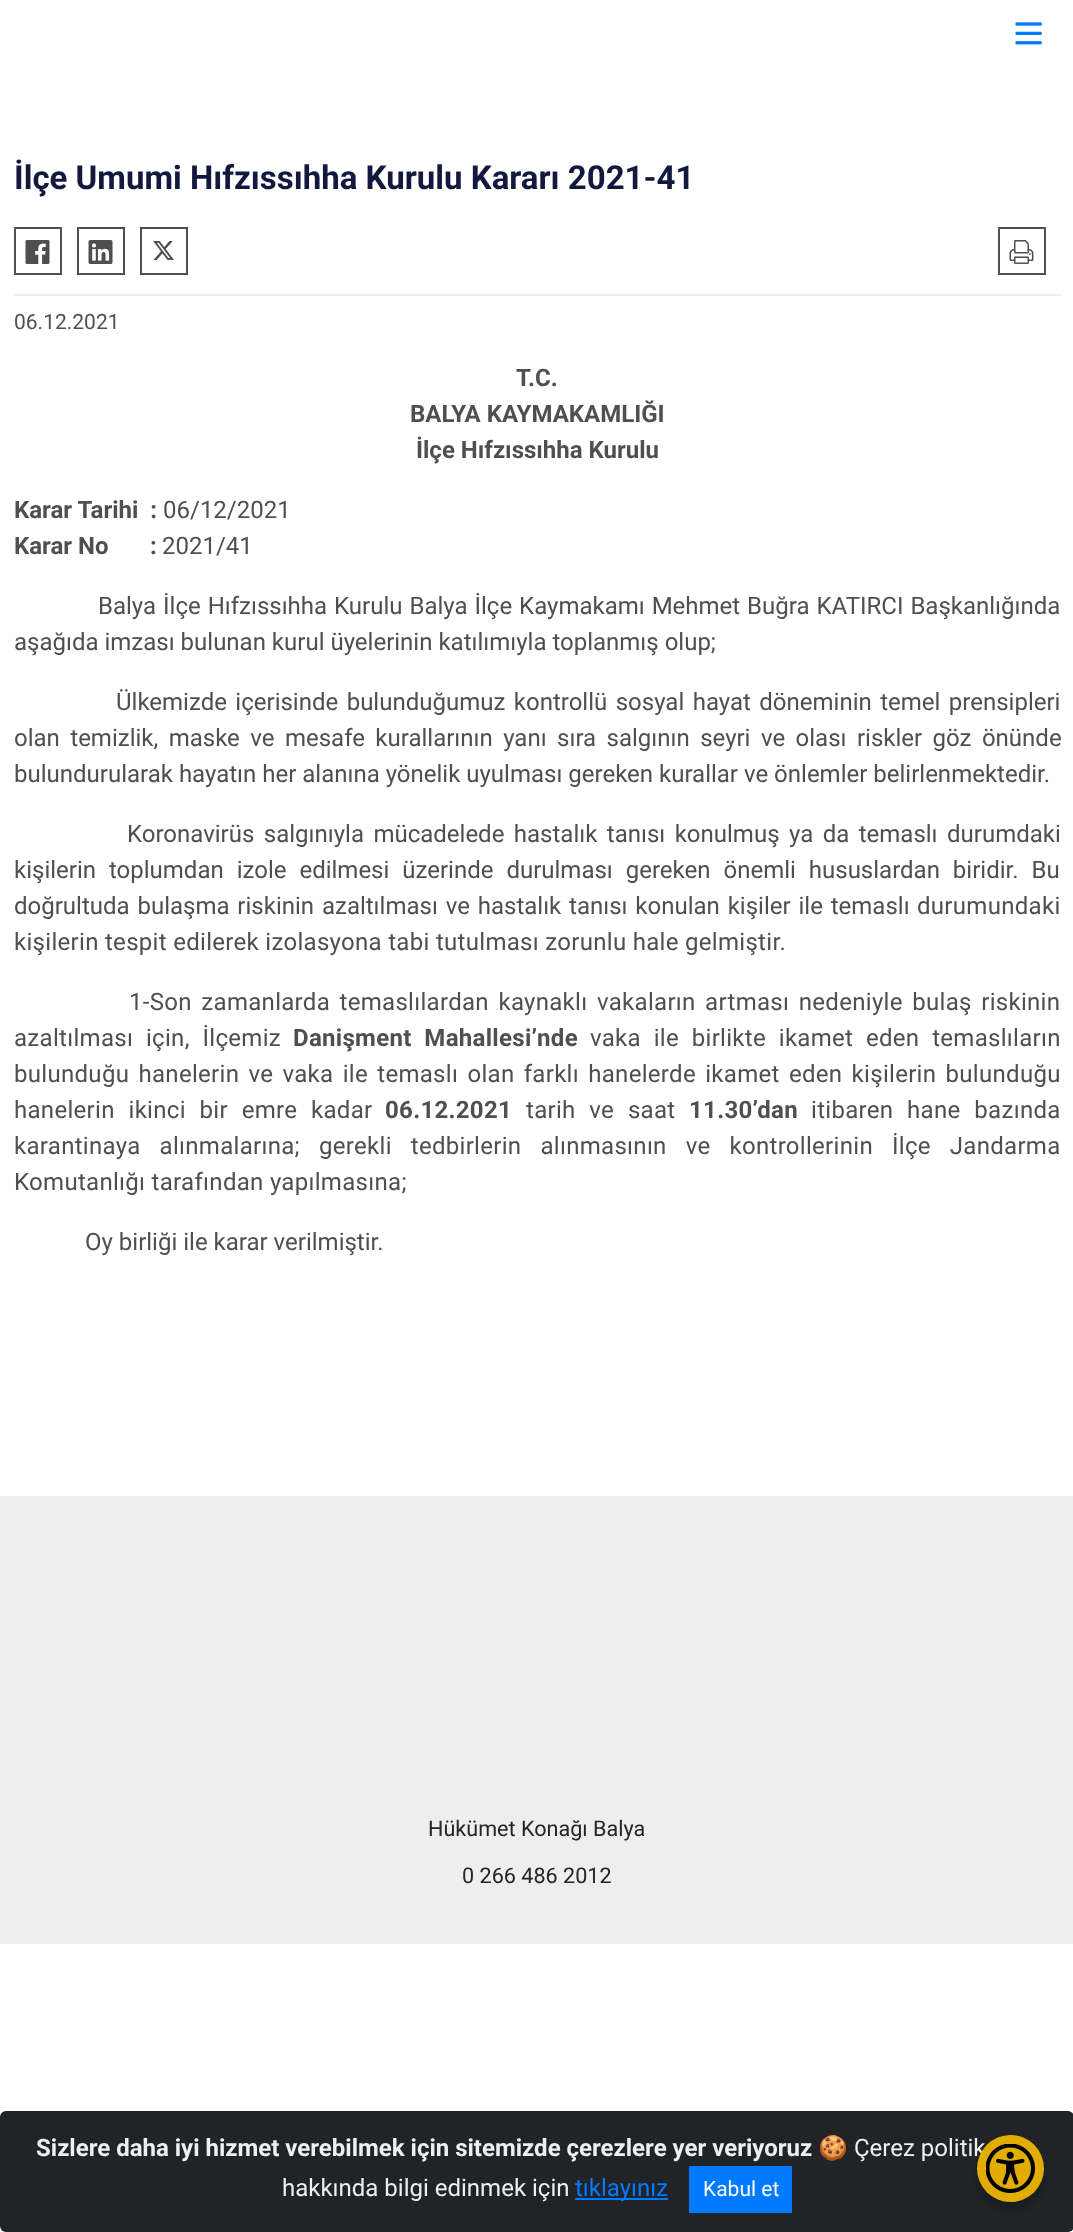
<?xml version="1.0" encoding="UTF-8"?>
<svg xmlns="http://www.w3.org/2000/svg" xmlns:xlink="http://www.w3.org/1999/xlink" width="1073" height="2232">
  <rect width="100%" height="100%" fill="#ffffff" />
  <image x="1015" y="22" width="27" height="23" xlink:href="image1.png" />
  <rect x="14" y="294" width="1047" height="2" fill="#eeeeee" />
  <rect x="15" y="228" width="46" height="46" fill="none" stroke="#4f4f4f" stroke-width="2" />
  <image x="25" y="240" width="25" height="24" xlink:href="image2.png" />
  <rect x="78" y="228" width="46" height="46" fill="none" stroke="#4f4f4f" stroke-width="2" />
  <image x="88" y="240" width="25" height="24" xlink:href="image3.png" />
  <rect x="141" y="228" width="46" height="46" fill="none" stroke="#4f4f4f" stroke-width="2" />
  <image x="153" y="241" width="21" height="19" xlink:href="image4.png" />
  <rect x="999" y="228" width="46" height="46" fill="none" stroke="#4f4f4f" stroke-width="2" />
  <image x="1009" y="240" width="25" height="24" xlink:href="image5.png" />
  <rect y="1496" width="1073" height="448" fill="#eeeeee" />
  <rect y="2111" width="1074" height="121" rx="6" fill="#212327" />
  <rect x="575" y="2198" width="93" height="2" fill="#007bff" />
  <rect x="689" y="2166" width="103" height="47" fill="#007bff" />
  <rect x="977" y="2144" width="67" height="67" rx="33.5" fill="#000000" fill-opacity="0.2" filter="blur(6px)" />
  <text x="14" y="189" style="font-family: Roboto; font-size: 33px; font-weight: bold; fill: #13183e">İlçe Umumi Hıfzıssıhha Kurulu Kararı 2021-41</text>
  <text x="14" y="329" style="font-family: Roboto; font-size: 21px; fill: #4f4f4f">06.12.2021</text>
  <text x="516" y="386" style="font-family: Roboto; font-size: 24px; font-weight: bold; fill: #4f4f4f">T.C.</text>
  <text x="410" y="422" style="font-family: Roboto; font-size: 24px; font-weight: bold; fill: #4f4f4f">BALYA KAYMAKAMLIĞI</text>
  <text x="416" y="458" style="font-family: Roboto; font-size: 24px; font-weight: bold; fill: #4f4f4f">İlçe Hıfzıssıhha Kurulu</text>
  <text x="14" y="518" style="font-family: Roboto; font-size: 24px; font-weight: bold; fill: #4f4f4f" xml:space="preserve">Karar Tarihi  :</text>
  <text x="163" y="518" style="font-family: Roboto; font-size: 24px; fill: #4f4f4f">06/12/2021</text>
  <text x="14" y="554" style="font-family: Roboto; font-size: 24px; font-weight: bold; fill: #4f4f4f">Karar No</text>
  <text x="150" y="554" style="font-family: Roboto; font-size: 24px; font-weight: bold; fill: #4f4f4f">:</text>
  <text x="162" y="554" style="font-family: Roboto; font-size: 24px; fill: #4f4f4f">2021/41</text>
  <text x="98" y="614" word-spacing="1" style="font-family: Roboto; font-size: 24px; fill: #4f4f4f">Balya İlçe Hıfzıssıhha Kurulu Balya İlçe Kaymakamı Mehmet Buğra KATIRCI Başkanlığında</text>
  <text x="14" y="650" style="font-family: Roboto; font-size: 24px; fill: #4f4f4f">aşağıda imzası bulunan kurul üyelerinin katılımıyla toplanmış olup;</text>
  <text x="116" y="710" word-spacing="2.5" style="font-family: Roboto; font-size: 24px; fill: #4f4f4f">Ülkemizde içerisinde bulunduğumuz kontrollü sosyal hayat döneminin temel prensipleri</text>
  <text x="14" y="746" word-spacing="4.5" style="font-family: Roboto; font-size: 24px; fill: #4f4f4f">olan temizlik, maske ve mesafe kurallarının yanı sıra salgının seyri ve olası riskler göz önünde</text>
  <text x="14" y="782" style="font-family: Roboto; font-size: 24px; fill: #4f4f4f">bulundurularak hayatın her alanına yönelik uyulması gereken kurallar ve önlemler belirlenmektedir.</text>
  <text x="127" y="842" word-spacing="3.5" style="font-family: Roboto; font-size: 24px; fill: #4f4f4f">Koronavirüs salgınıyla mücadelede hastalık tanısı konulmuş ya da temaslı durumdaki</text>
  <text x="14" y="878" word-spacing="7" style="font-family: Roboto; font-size: 24px; fill: #4f4f4f">kişilerin toplumdan izole edilmesi üzerinde durulması gereken önemli hususlardan biridir. Bu</text>
  <text x="14" y="914" word-spacing="1.9" style="font-family: Roboto; font-size: 24px; fill: #4f4f4f">doğrultuda bulaşma riskinin azaltılması ve hastalık tanısı konulan kişiler ile temaslı</text>
  <text x="917" y="914" style="font-family: Roboto; font-size: 24px; letter-spacing: 0.3px; fill: #4f4f4f">durumundaki</text>
  <text x="14" y="950" style="font-family: Roboto; font-size: 24px; letter-spacing: 0.3px; fill: #4f4f4f">kişilerin tespit edilerek izolasyona tabi tutulması zorunlu hale gelmiştir.</text>
  <text x="129" y="1010" word-spacing="3.25" style="font-family: Roboto; font-size: 24px; letter-spacing: 0.3px; fill: #4f4f4f">1-Son zamanlarda temaslılardan kaynaklı vakaların artması nedeniyle bulaş riskinin</text>
  <text x="14" y="1046" word-spacing="6.5" style="font-family: Roboto; font-size: 24px; letter-spacing: 0.3px; fill: #4f4f4f">azaltılması için, İlçemiz</text>
  <text x="293" y="1046" word-spacing="6.5" style="font-family: Roboto; font-size: 24px; font-weight: bold; letter-spacing: 0.3px; fill: #4f4f4f">Danişment Mahallesi’nde</text>
  <text x="590" y="1046" word-spacing="6.5" style="font-family: Roboto; font-size: 24px; letter-spacing: 0.3px; fill: #4f4f4f">vaka ile birlikte ikamet eden temaslıların</text>
  <text x="14" y="1082" word-spacing="3" style="font-family: Roboto; font-size: 24px; letter-spacing: 0.3px; fill: #4f4f4f">bulunduğu hanelerin ve vaka ile temaslı olan farklı hanelerde ikamet eden kişilerin bulunduğu</text>
  <text x="14" y="1118" word-spacing="7.5" style="font-family: Roboto; font-size: 24px; letter-spacing: 0.3px; fill: #4f4f4f">hanelerin ikinci bir emre kadar</text>
  <text x="385" y="1118" style="font-family: Roboto; font-size: 24px; font-weight: bold; letter-spacing: 0.3px; fill: #4f4f4f">06.12.2021</text>
  <text x="526" y="1118" word-spacing="7.5" style="font-family: Roboto; font-size: 24px; letter-spacing: 0.3px; fill: #4f4f4f">tarih ve saat</text>
  <text x="689" y="1118" style="font-family: Roboto; font-size: 24px; font-weight: bold; letter-spacing: 0.3px; fill: #4f4f4f">11.30’dan</text>
  <text x="811" y="1118" word-spacing="7.5" style="font-family: Roboto; font-size: 24px; letter-spacing: 0.3px; fill: #4f4f4f">itibaren hane bazında</text>
  <text x="14" y="1154" word-spacing="12.75" style="font-family: Roboto; font-size: 24px; letter-spacing: 0.3px; fill: #4f4f4f">karantinaya alınmalarına; gerekli tedbirlerin alınmasının ve kontrollerinin İlçe Jandarma</text>
  <text x="14" y="1190" style="font-family: Roboto; font-size: 24px; letter-spacing: 0.3px; fill: #4f4f4f">Komutanlığı tarafından yapılmasına;</text>
  <text x="85" y="1250" style="font-family: Roboto; font-size: 24px; fill: #4f4f4f">Oy birliği ile karar verilmiştir.</text>
  <text x="428" y="1836" style="font-family: Roboto; font-size: 21.6px; fill: #252525">Hükümet Konağı Balya</text>
  <text x="462" y="1883" style="font-family: Roboto; font-size: 21.6px; fill: #252525">0 266 486 2012</text>
  <text x="36" y="2156" style="font-family: Roboto; font-size: 24px; font-weight: bold; fill: #ecf0f1">Sizlere daha iyi hizmet verebilmek için sitemizde çerezlere yer veriyoruz</text>
  <text x="818" y="2156" style="font-family: Noto Color Emoji; font-size: 24px; fill: #ecf0f1">🍪</text>
  <text x="854" y="2156" style="font-family: Roboto; font-size: 24px; fill: #ecf0f1">Çerez politik</text>
  <text x="282" y="2196" style="font-family: Roboto; font-size: 24px; fill: #ecf0f1">hakkında bilgi edinmek için</text>
  <text x="575" y="2196" style="font-family: Roboto; font-size: 24px; fill: #007bff">tıklayınız</text>
  <text x="703" y="2196" style="font-family: Roboto; font-size: 21px; fill: #ffffff">Kabul et</text>
  <circle cx="1010.5" cy="2168.5" r="33.5" fill="#e1ad01" />
  <image x="986" y="2144" width="49" height="49" xlink:href="image6.png" />
</svg>
